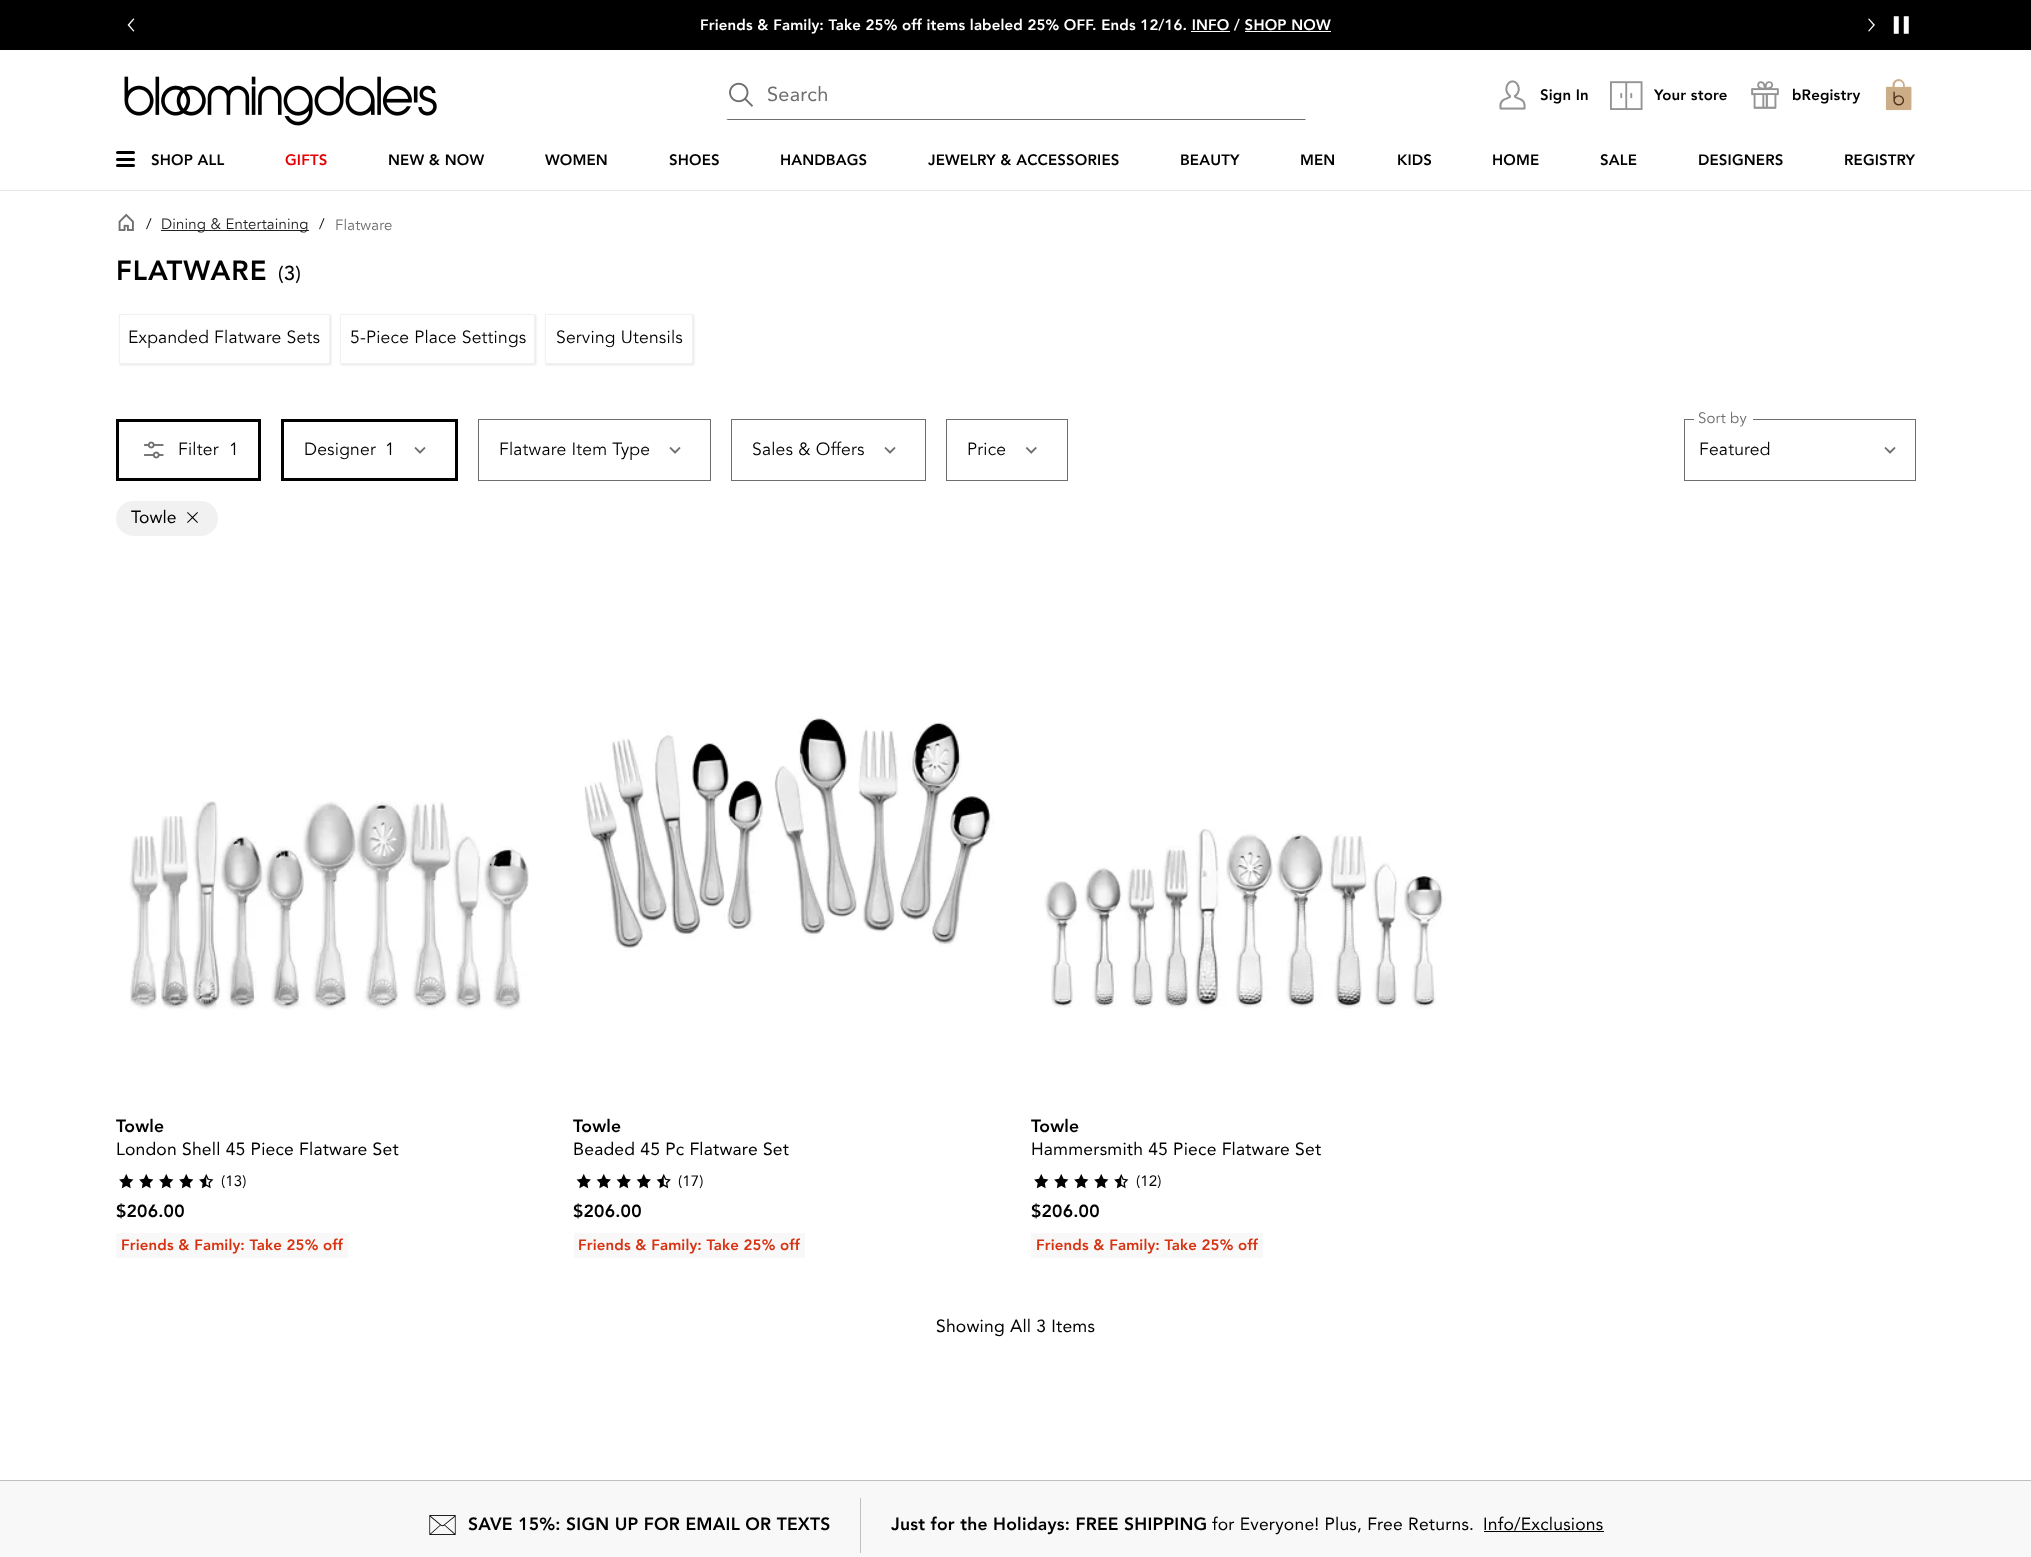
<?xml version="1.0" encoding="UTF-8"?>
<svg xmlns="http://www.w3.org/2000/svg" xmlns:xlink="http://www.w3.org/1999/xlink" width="2031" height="1557">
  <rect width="100%" height="100%" fill="#ffffff" />
  <rect width="2031" height="50" fill="#000000" />
  <image x="127" y="18" width="8" height="14" xlink:href="image1.png" />
  <rect x="1191" y="31" width="39" height="1" fill="#ffffff" />
  <rect x="1245" y="31" width="86" height="1" fill="#ffffff" />
  <image x="1868" y="18" width="7" height="14" xlink:href="image2.png" />
  <image x="1893" y="16" width="16" height="18" xlink:href="image3.png" />
  <image x="124" y="76" width="313" height="50" xlink:href="image4.png" />
  <image x="729" y="82" width="24" height="25" xlink:href="image5.png" />
  <path d="M 1306 120 h -580 l 2 -1 h 577 z" fill="#6e6e6e" />
  <image x="1499" y="80" width="27" height="30" xlink:href="image6.png" />
  <image x="1610" y="81" width="33" height="29" xlink:href="image7.png" />
  <image x="1751" y="81" width="28" height="28" xlink:href="image8.png" />
  <image x="1885" y="79" width="27" height="32" xlink:href="image9.png" />
  <rect y="190" width="2031" height="1" fill="#e6e6e6" />
  <rect x="116" y="151" width="19" height="3" rx="1.5" fill="#000000" />
  <rect x="116" y="158" width="19" height="3" rx="1.5" fill="#000000" />
  <rect x="116" y="164" width="19" height="3" rx="1.5" fill="#000000" />
  <image x="118" y="213" width="16" height="18" xlink:href="image10.png" />
  <rect x="161" y="230" width="148" height="1" fill="#222222" />
  <rect x="120" y="315" width="211" height="50" fill="#000000" fill-opacity="0.1" filter="blur(1px)" />
  <rect x="120" y="315" width="209" height="48" fill="#ffffff" />
  <rect x="119.5" y="314.5" width="210" height="49" fill="none" stroke="#f1f1f1" />
  <rect x="341" y="315" width="195" height="50" fill="#000000" fill-opacity="0.1" filter="blur(1px)" />
  <rect x="341" y="315" width="193" height="48" fill="#ffffff" />
  <rect x="340.5" y="314.5" width="194" height="49" fill="none" stroke="#f1f1f1" />
  <rect x="546" y="315" width="148" height="50" fill="#000000" fill-opacity="0.1" filter="blur(1px)" />
  <rect x="546" y="315" width="146" height="48" fill="#ffffff" />
  <rect x="545.5" y="314.5" width="147" height="49" fill="none" stroke="#f1f1f1" />
  <rect x="117.5" y="420.5" width="142" height="59" fill="none" stroke="#000000" stroke-width="3" />
  <image x="144" y="441" width="20" height="18" xlink:href="image11.png" />
  <rect x="282.5" y="420.5" width="174" height="59" fill="none" stroke="#000000" stroke-width="3" />
  <image x="414" y="447" width="12" height="7" xlink:href="image12.png" />
  <rect x="478.5" y="419.5" width="232" height="61" fill="none" stroke="#6e6e6e" />
  <image x="669" y="447" width="12" height="7" xlink:href="image12.png" />
  <rect x="731.5" y="419.5" width="194" height="61" fill="none" stroke="#6e6e6e" />
  <image x="884" y="447" width="12" height="7" xlink:href="image12.png" />
  <rect x="946.5" y="419.5" width="121" height="61" fill="none" stroke="#6e6e6e" />
  <image x="1025" y="447" width="12" height="7" xlink:href="image13.png" />
  <image x="1884" y="447" width="12" height="7" xlink:href="image12.png" />
  <rect x="1684.5" y="419.5" width="231" height="61" fill="none" stroke="#6e6e6e" />
  <rect x="1694" y="419" width="59" height="1" fill="#ffffff" />
  <rect x="116" y="501" width="102" height="35" rx="17.5" fill="#f1f1f1" />
  <image x="187" y="512" width="11" height="11" xlink:href="image14.png" />
  <image x="129" y="801" width="400" height="210" xlink:href="image15.png" />
  <image x="119" y="1174" width="15" height="15" xlink:href="image16.png" />
  <image x="139" y="1174" width="15" height="15" xlink:href="image16.png" />
  <image x="159" y="1174" width="15" height="15" xlink:href="image16.png" />
  <image x="179" y="1174" width="15" height="15" xlink:href="image16.png" />
  <image x="199" y="1174" width="15" height="15" xlink:href="image17.png" />
  <rect x="116" y="1233" width="232" height="25" fill="#f8f8f8" />
  <image x="584" y="716" width="410" height="235" xlink:href="image18.png" />
  <image x="576" y="1174" width="15" height="15" xlink:href="image19.png" />
  <image x="596" y="1174" width="15" height="15" xlink:href="image19.png" />
  <image x="616" y="1174" width="15" height="15" xlink:href="image19.png" />
  <image x="636" y="1174" width="15" height="15" xlink:href="image19.png" />
  <image x="656" y="1174" width="15" height="15" xlink:href="image20.png" />
  <rect x="574" y="1233" width="231" height="25" fill="#f8f8f8" />
  <image x="1044" y="828" width="402" height="181" xlink:href="image21.png" />
  <image x="1034" y="1174" width="15" height="15" xlink:href="image16.png" />
  <image x="1054" y="1174" width="15" height="15" xlink:href="image16.png" />
  <image x="1074" y="1174" width="15" height="15" xlink:href="image16.png" />
  <image x="1094" y="1174" width="15" height="15" xlink:href="image16.png" />
  <image x="1114" y="1174" width="15" height="15" xlink:href="image17.png" />
  <rect x="1031" y="1233" width="232" height="25" fill="#f8f8f8" />
  <rect y="1481" width="2031" height="76" fill="#f8f8f8" />
  <rect y="1480" width="2031" height="1" fill="#c0c0c0" />
  <image x="429" y="1515" width="27" height="20" xlink:href="image22.png" />
  <rect x="860" y="1498" width="1" height="55" fill="#c0c0c0" />
  <rect x="1484" y="1531" width="120" height="1" fill="#000000" />
  <text x="700" y="30" style="font-family: Avenir; font-size: 15px; font-weight: 900; letter-spacing: 0.15px; fill: #ffffff">Friends &amp; Family: Take 25% off items labeled 25% OFF. Ends 12/16. INFO / SHOP NOW</text>
  <text x="767" y="101" style="font-family: 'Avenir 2'; font-size: 20px; letter-spacing: 0.25px; fill: #6e6e6e">Search</text>
  <text x="1540" y="100" style="font-family: Avenir; font-size: 15px; font-weight: 900; letter-spacing: 0.15px; fill: #000000">Sign In</text>
  <text x="1654" y="100" style="font-family: Avenir; font-size: 15px; font-weight: 900; letter-spacing: 0.15px; fill: #000000">Your store</text>
  <text x="1792" y="100" style="font-family: Avenir; font-size: 15px; font-weight: 900; letter-spacing: 0.15px; fill: #000000">bRegistry</text>
  <text x="151" y="165" style="font-family: Avenir; font-size: 15px; font-weight: 900; letter-spacing: 0.15px; fill: #000000">SHOP ALL</text>
  <text x="285" y="165" style="font-family: Avenir; font-size: 15px; font-weight: 900; letter-spacing: 0.15px; fill: #e30304">GIFTS</text>
  <text x="388" y="165" style="font-family: Avenir; font-size: 15px; font-weight: 900; letter-spacing: 0.15px; fill: #000000">NEW &amp; NOW</text>
  <text x="545" y="165" style="font-family: Avenir; font-size: 15px; font-weight: 900; letter-spacing: 0.15px; fill: #000000">WOMEN</text>
  <text x="669" y="165" style="font-family: Avenir; font-size: 15px; font-weight: 900; letter-spacing: 0.15px; fill: #000000">SHOES</text>
  <text x="780" y="165" style="font-family: Avenir; font-size: 15px; font-weight: 900; letter-spacing: 0.15px; fill: #000000">HANDBAGS</text>
  <text x="928" y="165" style="font-family: Avenir; font-size: 15px; font-weight: 900; letter-spacing: 0.15px; fill: #000000">JEWELRY &amp; ACCESSORIES</text>
  <text x="1180" y="165" style="font-family: Avenir; font-size: 15px; font-weight: 900; letter-spacing: 0.15px; fill: #000000">BEAUTY</text>
  <text x="1300" y="165" style="font-family: Avenir; font-size: 15px; font-weight: 900; letter-spacing: 0.15px; fill: #000000">MEN</text>
  <text x="1397" y="165" style="font-family: Avenir; font-size: 15px; font-weight: 900; letter-spacing: 0.15px; fill: #000000">KIDS</text>
  <text x="1492" y="165" style="font-family: Avenir; font-size: 15px; font-weight: 900; letter-spacing: 0.15px; fill: #000000">HOME</text>
  <text x="1600" y="165" style="font-family: Avenir; font-size: 15px; font-weight: 900; letter-spacing: 0.15px; fill: #000000">SALE</text>
  <text x="1698" y="165" style="font-family: Avenir; font-size: 15px; font-weight: 900; letter-spacing: 0.15px; fill: #000000">DESIGNERS</text>
  <text x="1844" y="165" style="font-family: Avenir; font-size: 15px; font-weight: 900; letter-spacing: 0.15px; fill: #000000">REGISTRY</text>
  <text x="146" y="229" style="font-family: Avenir; font-size: 15px; letter-spacing: 0.15px; fill: #000000">/</text>
  <text x="161" y="229" style="font-family: Avenir; font-size: 15px; letter-spacing: 0.15px; fill: #222222">Dining &amp; Entertaining</text>
  <text x="319" y="229" style="font-family: Avenir; font-size: 15px; letter-spacing: 0.15px; fill: #000000">/</text>
  <text x="335" y="230" style="font-family: Avenir; font-size: 15px; letter-spacing: 0.15px; fill: #6e6e6e">Flatware</text>
  <text x="116" y="280" style="font-family: Avenir; font-size: 27.5px; font-weight: 900; letter-spacing: 1px; fill: #000000">FLATWARE</text>
  <text x="278" y="280" style="font-family: Avenir; font-size: 20px; font-weight: 500; letter-spacing: 0.25px; fill: #000000">(3)</text>
  <text x="128" y="343" style="font-family: Avenir; font-size: 17.5px; letter-spacing: 0.2px; fill: #000000">Expanded Flatware Sets</text>
  <text x="350" y="343" style="font-family: Avenir; font-size: 17.5px; letter-spacing: 0.2px; fill: #000000">5-Piece Place Settings</text>
  <text x="556" y="343" style="font-family: Avenir; font-size: 17.5px; letter-spacing: 0.2px; fill: #000000">Serving Utensils</text>
  <text x="178" y="455" style="font-family: Avenir; font-size: 17.5px; letter-spacing: 0.2px; fill: #000000">Filter</text>
  <text x="229" y="455" style="font-family: Avenir; font-size: 17.5px; letter-spacing: 0.2px; fill: #000000">1</text>
  <text x="304" y="455" style="font-family: Avenir; font-size: 17.5px; letter-spacing: 0.2px; fill: #000000">Designer</text>
  <text x="385" y="455" style="font-family: Avenir; font-size: 17.5px; letter-spacing: 0.2px; fill: #000000">1</text>
  <text x="499" y="455" style="font-family: Avenir; font-size: 17.5px; letter-spacing: 0.2px; fill: #000000">Flatware Item Type</text>
  <text x="752" y="455" style="font-family: Avenir; font-size: 17.5px; letter-spacing: 0.2px; fill: #000000">Sales &amp; Offers</text>
  <text x="967" y="455" style="font-family: Avenir; font-size: 17.5px; letter-spacing: 0.2px; fill: #000000">Price</text>
  <text x="1698" y="423" style="font-family: Avenir; font-size: 15px; letter-spacing: 0.15px; fill: #6e6e6e">Sort by</text>
  <text x="1699" y="455" style="font-family: Avenir; font-size: 17.5px; letter-spacing: 0.2px; fill: #000000">Featured</text>
  <text x="131" y="523" style="font-family: 'Avenir 2'; font-size: 17.5px; fill: #000000">Towle</text>
  <text x="116" y="1132" style="font-family: Avenir; font-size: 17.5px; font-weight: 900; letter-spacing: 0.2px; fill: #000000">Towle</text>
  <text x="116" y="1155" style="font-family: 'Avenir 2'; font-size: 17.5px; letter-spacing: 0.2px; fill: #000000">London Shell 45 Piece Flatware Set</text>
  <text x="221" y="1186" style="font-family: 'Avenir 2'; font-size: 15px; letter-spacing: 0.15px; fill: #000000">(13)</text>
  <text x="116" y="1217" style="font-family: Avenir; font-size: 17.5px; font-weight: 900; letter-spacing: 0.2px; fill: #000000">$206.00</text>
  <text x="121" y="1250" style="font-family: Avenir; font-size: 15px; font-weight: 900; letter-spacing: 0.15px; fill: #d73312">Friends &amp; Family: Take 25% off</text>
  <text x="573" y="1132" style="font-family: Avenir; font-size: 17.5px; font-weight: 900; letter-spacing: 0.2px; fill: #000000">Towle</text>
  <text x="573" y="1155" style="font-family: 'Avenir 2'; font-size: 17.5px; letter-spacing: 0.2px; fill: #000000">Beaded 45 Pc Flatware Set</text>
  <text x="678" y="1186" style="font-family: 'Avenir 2'; font-size: 15px; letter-spacing: 0.15px; fill: #000000">(17)</text>
  <text x="573" y="1217" style="font-family: Avenir; font-size: 17.5px; font-weight: 900; letter-spacing: 0.2px; fill: #000000">$206.00</text>
  <text x="578" y="1250" style="font-family: Avenir; font-size: 15px; font-weight: 900; letter-spacing: 0.15px; fill: #d73312">Friends &amp; Family: Take 25% off</text>
  <text x="1031" y="1132" style="font-family: Avenir; font-size: 17.5px; font-weight: 900; letter-spacing: 0.2px; fill: #000000">Towle</text>
  <text x="1031" y="1155" style="font-family: 'Avenir 2'; font-size: 17.5px; letter-spacing: 0.2px; fill: #000000">Hammersmith 45 Piece Flatware Set</text>
  <text x="1136" y="1186" style="font-family: 'Avenir 2'; font-size: 15px; letter-spacing: 0.15px; fill: #000000">(12)</text>
  <text x="1031" y="1217" style="font-family: Avenir; font-size: 17.5px; font-weight: 900; letter-spacing: 0.2px; fill: #000000">$206.00</text>
  <text x="1036" y="1250" style="font-family: Avenir; font-size: 15px; font-weight: 900; letter-spacing: 0.15px; fill: #d73312">Friends &amp; Family: Take 25% off</text>
  <text x="936" y="1332" style="font-family: 'Avenir 2'; font-size: 17.5px; letter-spacing: 0.2px; fill: #000000">Showing All 3 Items</text>
  <text x="468" y="1530" style="font-family: Avenir; font-size: 17.5px; font-weight: 900; letter-spacing: 0.2px; fill: #000000">SAVE 15%: SIGN UP FOR EMAIL OR TEXTS</text>
  <text x="891" y="1530" style="font-family: Avenir; font-size: 17.5px; font-weight: 900; letter-spacing: 0.2px; fill: #000000">Just for the Holidays: FREE SHIPPING</text>
  <text x="1212" y="1530" style="font-family: 'Avenir 2'; font-size: 17.5px; letter-spacing: 0.2px; fill: #000000">for Everyone! Plus, Free Returns.</text>
  <text x="1483" y="1530" style="font-family: 'Avenir 2'; font-size: 17.5px; letter-spacing: 0.2px; fill: #000000">Info/Exclusions</text>
</svg>
